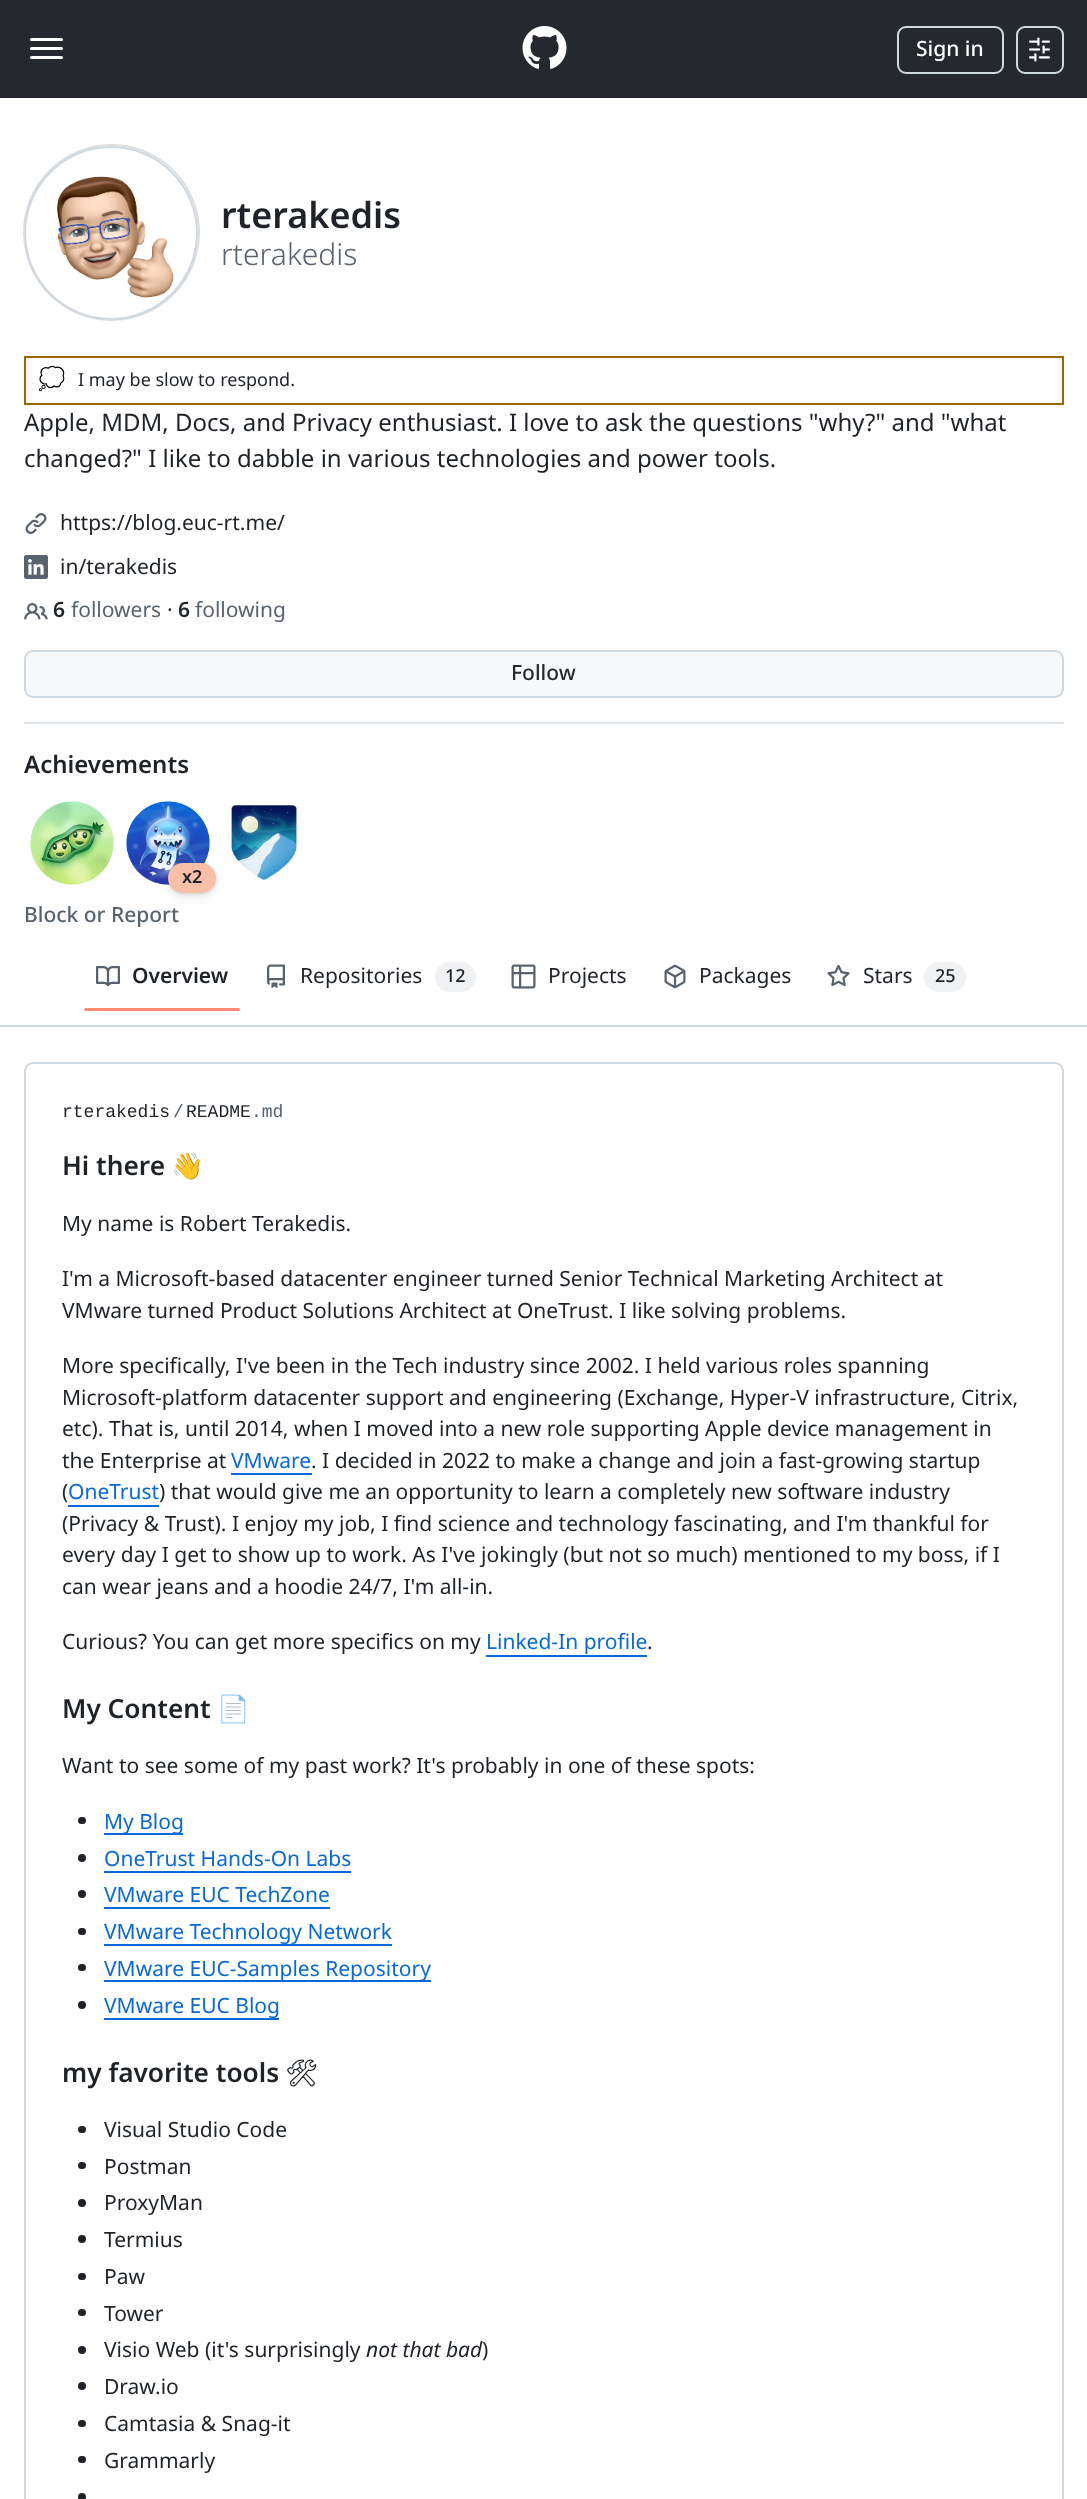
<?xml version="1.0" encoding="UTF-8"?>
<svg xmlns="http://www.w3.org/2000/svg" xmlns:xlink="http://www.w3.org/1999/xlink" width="1087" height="2499">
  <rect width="100%" height="100%" fill="#ffffff" />
  <rect width="1087" height="98" fill="#25292e" />
  <rect x="30" y="38" width="33" height="3" rx="1.5" fill="#ffffff" />
  <rect x="30" y="47" width="33" height="3" rx="1.5" fill="#ffffff" />
  <rect x="30" y="56" width="33" height="3" rx="1.5" fill="#ffffff" />
  <image x="522" y="26" width="45" height="43" xlink:href="image1.png" />
  <rect x="898" y="27" width="105" height="46" rx="8" fill="none" stroke="#d1d9e0" stroke-width="2" />
  <rect x="1017" y="27" width="46" height="46" rx="8" fill="none" stroke="#d1d9e0" stroke-width="2" />
  <image x="1029" y="37" width="21" height="25" xlink:href="image2.png" />
  <circle cx="111.5" cy="232.5" r="87.5" fill="none" stroke="#dddedf" stroke-width="2" />
  <circle cx="111" cy="233" r="86" fill="#ffffff" stroke="#d1d9e0" stroke-width="2" />
  <image x="57" y="176" width="117" height="122" xlink:href="image3.png" />
  <rect x="25" y="357" width="1038" height="47" fill="none" stroke="#9a6700" stroke-width="2" />
  <image x="25" y="513" width="22" height="21" xlink:href="image4.png" />
  <image x="24" y="555" width="24" height="24" xlink:href="image5.png" />
  <image x="24" y="603" width="24" height="17" xlink:href="image6.png" />
  <rect x="25" y="651" width="1038" height="46" rx="8" fill="#f6f8fa" stroke="#d1d9e0" stroke-width="2" />
  <rect x="24" y="722" width="1040" height="2" fill="#dfe4e9" />
  <image x="30" y="801" width="84" height="84" xlink:href="image7.png" />
  <image x="126" y="801" width="84" height="84" xlink:href="image8.png" />
  <rect x="168" y="867" width="48" height="30" rx="15" fill="#25292e" fill-opacity="0.12" filter="blur(4.5px)" />
  <rect x="168" y="864" width="48" height="30" rx="15" fill="#25292e" fill-opacity="0.1" filter="blur(1px)" />
  <rect x="169" y="864" width="46" height="28" rx="14" fill="#f9bfa7" stroke="#f9bfa7" stroke-width="2" />
  <image x="231" y="805" width="66" height="75" xlink:href="image9.png" />
  <rect y="1025" width="1087" height="2" fill="#d1d9e0" />
  <image x="96" y="966" width="24" height="21" xlink:href="image10.png" />
  <rect x="84" y="1008" width="156" height="3" rx="1.5" fill="#fd8c73" />
  <image x="267" y="964" width="18" height="24" xlink:href="image11.png" />
  <rect x="435" y="962" width="41" height="30" rx="15" fill="#f0f1f3" />
  <image x="511" y="964" width="25" height="25" xlink:href="image12.png" />
  <image x="664" y="964" width="22" height="25" xlink:href="image13.png" />
  <image x="827" y="964" width="23" height="23" xlink:href="image14.png" />
  <rect x="924" y="962" width="42" height="30" rx="15" fill="#f0f1f3" />
  <rect x="25" y="1063" width="1038" height="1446" rx="8" fill="none" stroke="#d1d9e0" stroke-width="2" />
  <rect x="231" y="1473" width="81" height="2" fill="#0969da" />
  <rect x="68" y="1505" width="91" height="2" fill="#0969da" />
  <rect x="486" y="1655" width="161" height="2" fill="#0969da" />
  <rect x="78" y="1817" width="8" height="7" rx="3.5" fill="#1f2328" />
  <rect x="104" y="1833" width="79" height="2" fill="#0969da" />
  <circle cx="82" cy="1858" r="4" fill="#1f2328" />
  <rect x="104" y="1871" width="247" height="2" fill="#0969da" />
  <circle cx="82" cy="1894" r="4" fill="#1f2328" />
  <rect x="104" y="1907" width="226" height="2" fill="#0969da" />
  <rect x="78" y="1928" width="8" height="7" rx="3.5" fill="#1f2328" />
  <rect x="104" y="1944" width="288" height="2" fill="#0969da" />
  <rect x="78" y="1964" width="8" height="7" rx="3.5" fill="#1f2328" />
  <rect x="104" y="1980" width="327" height="2" fill="#0969da" />
  <circle cx="82" cy="2005" r="4" fill="#1f2328" />
  <rect x="104" y="2018" width="175" height="2" fill="#0969da" />
  <rect x="78" y="2126" width="8" height="7" rx="3.5" fill="#1f2328" />
  <rect x="78" y="2162" width="8" height="7" rx="3.5" fill="#1f2328" />
  <circle cx="82" cy="2203" r="4" fill="#1f2328" />
  <circle cx="82" cy="2239" r="4" fill="#1f2328" />
  <rect x="78" y="2273" width="8" height="7" rx="3.5" fill="#1f2328" />
  <rect x="78" y="2309" width="8" height="7" rx="3.5" fill="#1f2328" />
  <circle cx="82" cy="2350" r="4" fill="#1f2328" />
  <circle cx="82" cy="2386" r="4" fill="#1f2328" />
  <rect x="78" y="2420" width="8" height="7" rx="3.5" fill="#1f2328" />
  <rect x="78" y="2456" width="8" height="7" rx="3.5" fill="#1f2328" />
  <circle cx="82" cy="2497" r="4" fill="#1f2328" />
  <text x="916" y="56" style="font-family: Noto Sans; font-size: 21px; font-weight: 500; fill: #ffffff">Sign in</text>
  <text x="221" y="228" style="font-family: Noto Sans; font-size: 36px; font-weight: 600; fill: #1f2328">rterakedis</text>
  <text x="221" y="265" style="font-family: Noto Sans; font-size: 30px; font-weight: 300; fill: #59636e">rterakedis</text>
  <text x="38" y="386" style="font-family: Noto Color Emoji; font-size: 22px; fill: #1f2328">💭</text>
  <text x="78" y="386" style="font-family: Noto Sans; font-size: 18px; fill: #1f2328">I may be slow to respond.</text>
  <text x="24" y="431" style="font-family: Noto Sans; font-size: 24px; fill: #1f2328">Apple, MDM, Docs, and Privacy enthusiast. I love to ask the questions "why?" and "what</text>
  <text x="24" y="467" style="font-family: Noto Sans; font-size: 24px; fill: #1f2328">changed?" I like to dabble in various technologies and power tools.</text>
  <text x="60" y="530" style="font-family: Noto Sans; font-size: 21px; fill: #1f2328">https://blog.euc-rt.me/</text>
  <text x="60" y="574" style="font-family: Noto Sans; font-size: 21px; fill: #1f2328">in/terakedis</text>
  <text x="53" y="617" style="font-family: Noto Sans; font-size: 21px; font-weight: 600; fill: #1f2328">6</text>
  <text x="71" y="617" style="font-family: Noto Sans; font-size: 21px; fill: #59636e">followers</text>
  <text x="167" y="617" style="font-family: Noto Sans; font-size: 21px; fill: #1f2328">·</text>
  <text x="178" y="617" style="font-family: Noto Sans; font-size: 21px; font-weight: 600; fill: #1f2328">6</text>
  <text x="195" y="617" style="font-family: Noto Sans; font-size: 21px; fill: #59636e">following</text>
  <text x="511" y="680" style="font-family: Noto Sans; font-size: 21px; font-weight: 500; fill: #25292e">Follow</text>
  <text x="24" y="773" style="font-family: Noto Sans; font-size: 24px; font-weight: 600; fill: #1f2328">Achievements</text>
  <text x="182" y="883" style="font-family: Noto Sans; font-size: 18px; font-weight: 600; fill: #1f2328">x2</text>
  <text x="24" y="922" style="font-family: Noto Sans; font-size: 21px; font-weight: 500; fill: #59636e">Block or Report</text>
  <text x="132" y="983" style="font-family: Noto Sans; font-size: 21px; font-weight: 600; fill: #1f2328">Overview</text>
  <text x="300" y="983" style="font-family: Noto Sans; font-size: 21px; fill: #1f2328">Repositories</text>
  <text x="445" y="982" style="font-family: Noto Sans; font-size: 18px; font-weight: 500; fill: #1f2328">12</text>
  <text x="548" y="983" style="font-family: Noto Sans; font-size: 21px; fill: #1f2328">Projects</text>
  <text x="699" y="983" style="font-family: Noto Sans; font-size: 21px; fill: #1f2328">Packages</text>
  <text x="863" y="983" style="font-family: Noto Sans; font-size: 21px; fill: #1f2328">Stars</text>
  <text x="935" y="982" style="font-family: Noto Sans; font-size: 18px; font-weight: 500; fill: #1f2328">25</text>
  <text x="62" y="1117" style="font-family: Liberation Mono; font-size: 18px; fill: #1f2328">rterakedis</text>
  <text x="173" y="1117" style="font-family: Liberation Mono; font-size: 18px; fill: #59636e">/</text>
  <text x="186" y="1117" style="font-family: Liberation Mono; font-size: 18px; fill: #1f2328">README</text>
  <text x="251" y="1117" style="font-family: Liberation Mono; font-size: 18px; fill: #59636e">.md</text>
  <text x="62" y="1175" style="font-family: Noto Sans; font-size: 26.25px; font-weight: 600; fill: #1f2328">Hi there</text>
  <text x="171" y="1175" style="font-family: Noto Color Emoji; font-size: 26.25px; font-weight: bold; fill: #1f2328">👋</text>
  <text x="62" y="1231" style="font-family: Noto Sans; font-size: 21px; fill: #1f2328">My name is Robert Terakedis.</text>
  <text x="62" y="1286" style="font-family: Noto Sans; font-size: 21px; fill: #1f2328">I'm a Microsoft-based datacenter engineer turned Senior Technical Marketing Architect at</text>
  <text x="62" y="1318" style="font-family: Noto Sans; font-size: 21px; fill: #1f2328">VMware turned Product Solutions Architect at OneTrust. I like solving problems.</text>
  <text x="62" y="1373" style="font-family: Noto Sans; font-size: 21px; fill: #1f2328">More specifically, I've been in the Tech industry since 2002. I held various roles spanning</text>
  <text x="62" y="1405" style="font-family: Noto Sans; font-size: 21px; fill: #1f2328">Microsoft-platform datacenter support and engineering (Exchange, Hyper-V infrastructure, Citrix,</text>
  <text x="62" y="1436" style="font-family: Noto Sans; font-size: 21px; fill: #1f2328">etc). That is, until 2014, when I moved into a new role supporting Apple device management in</text>
  <text x="62" y="1468" style="font-family: Noto Sans; font-size: 21px; fill: #1f2328">the Enterprise at</text>
  <text x="231" y="1468" style="font-family: Noto Sans; font-size: 21px; fill: #0969da">VMware</text>
  <text x="311" y="1468" style="font-family: Noto Sans; font-size: 21px; fill: #1f2328">. I decided in 2022 to make a change and join a fast-growing startup</text>
  <text x="62" y="1499" style="font-family: Noto Sans; font-size: 21px; fill: #1f2328">(</text>
  <text x="68" y="1499" style="font-family: Noto Sans; font-size: 21px; fill: #0969da">OneTrust</text>
  <text x="159" y="1499" style="font-family: Noto Sans; font-size: 21px; fill: #1f2328">) that would give me an opportunity to learn a completely new software industry</text>
  <text x="62" y="1531" style="font-family: Noto Sans; font-size: 21px; fill: #1f2328">(Privacy &amp; Trust). I enjoy my job, I find science and technology fascinating, and I'm thankful for</text>
  <text x="62" y="1562" style="font-family: Noto Sans; font-size: 21px; fill: #1f2328">every day I get to show up to work. As I've jokingly (but not so much) mentioned to my boss, if I</text>
  <text x="62" y="1594" style="font-family: Noto Sans; font-size: 21px; fill: #1f2328">can wear jeans and a hoodie 24/7, I'm all-in.</text>
  <text x="62" y="1649" style="font-family: Noto Sans; font-size: 21px; fill: #1f2328">Curious? You can get more specifics on my</text>
  <text x="486" y="1649" style="font-family: Noto Sans; font-size: 21px; fill: #0969da">Linked-In profile</text>
  <text x="647" y="1649" style="font-family: Noto Sans; font-size: 21px; fill: #1f2328">.</text>
  <text x="62" y="1718" style="font-family: Noto Sans; font-size: 26.25px; font-weight: 600; fill: #1f2328">My Content</text>
  <text x="217" y="1718" style="font-family: Noto Color Emoji; font-size: 26.25px; font-weight: bold; fill: #1f2328">📄</text>
  <text x="62" y="1773" style="font-family: Noto Sans; font-size: 21px; fill: #1f2328">Want to see some of my past work? It's probably in one of these spots:</text>
  <text x="104" y="1829" style="font-family: Noto Sans; font-size: 21px; fill: #0969da">My Blog</text>
  <text x="104" y="1866" style="font-family: Noto Sans; font-size: 21px; fill: #0969da">OneTrust Hands-On Labs</text>
  <text x="104" y="1902" style="font-family: Noto Sans; font-size: 21px; fill: #0969da">VMware EUC TechZone</text>
  <text x="104" y="1939" style="font-family: Noto Sans; font-size: 21px; fill: #0969da">VMware Technology Network</text>
  <text x="104" y="1976" style="font-family: Noto Sans; font-size: 21px; fill: #0969da">VMware EUC-Samples Repository</text>
  <text x="104" y="2013" style="font-family: Noto Sans; font-size: 21px; fill: #0969da">VMware EUC Blog</text>
  <text x="62" y="2082" style="font-family: Noto Sans; font-size: 26.25px; font-weight: 600; fill: #1f2328">my favorite tools</text>
  <text x="285" y="2082" style="font-family: Noto Emoji; font-size: 26.25px; font-weight: 600; fill: #1f2328">🛠</text>
  <text x="104" y="2137" style="font-family: Noto Sans; font-size: 21px; fill: #1f2328">Visual Studio Code</text>
  <text x="104" y="2174" style="font-family: Noto Sans; font-size: 21px; fill: #1f2328">Postman</text>
  <text x="104" y="2210" style="font-family: Noto Sans; font-size: 21px; fill: #1f2328">ProxyMan</text>
  <text x="104" y="2247" style="font-family: Noto Sans; font-size: 21px; fill: #1f2328">Termius</text>
  <text x="104" y="2284" style="font-family: Noto Sans; font-size: 21px; fill: #1f2328">Paw</text>
  <text x="104" y="2321" style="font-family: Noto Sans; font-size: 21px; fill: #1f2328">Tower</text>
  <text x="104" y="2357" style="font-family: Noto Sans; font-size: 21px; fill: #1f2328">Visio Web (it's surprisingly</text>
  <text x="366" y="2357" style="font-family: Noto Sans; font-size: 21px; font-style: italic; fill: #1f2328">not that bad</text>
  <text x="482" y="2357" style="font-family: Noto Sans; font-size: 21px; fill: #1f2328">)</text>
  <text x="104" y="2394" style="font-family: Noto Sans; font-size: 21px; fill: #1f2328">Draw.io</text>
  <text x="104" y="2431" style="font-family: Noto Sans; font-size: 21px; fill: #1f2328">Camtasia &amp; Snag-it</text>
  <text x="104" y="2468" style="font-family: Noto Sans; font-size: 21px; fill: #1f2328">Grammarly</text>
</svg>
